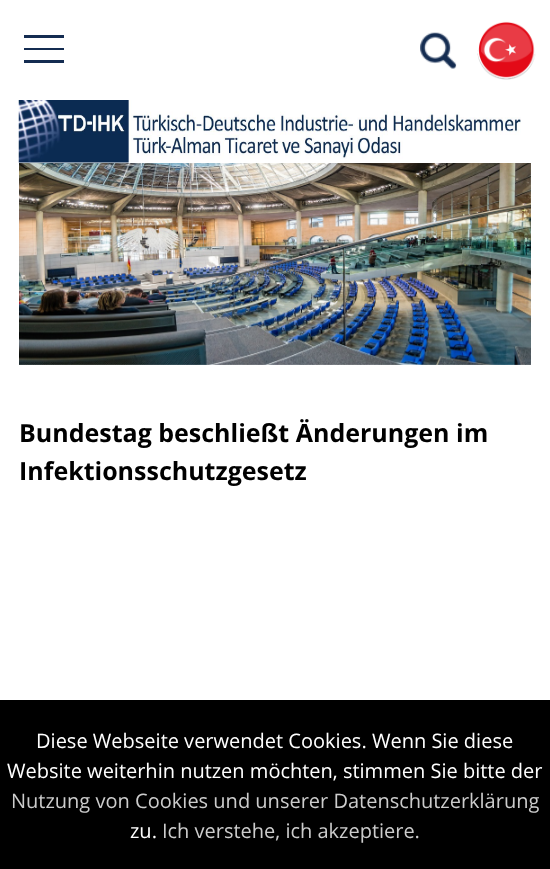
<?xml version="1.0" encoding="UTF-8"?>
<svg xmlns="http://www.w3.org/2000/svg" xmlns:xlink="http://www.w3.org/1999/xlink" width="550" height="869">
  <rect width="100%" height="100%" fill="#ffffff" />
  <rect x="24" y="35" width="40" height="3" fill="#142c51" />
  <rect x="24" y="48" width="40" height="2" fill="#142c51" />
  <rect x="24" y="60" width="40" height="3" fill="#142c51" />
  <image x="420" y="32" width="37" height="37" xlink:href="image1.png" />
  <image x="477" y="21" width="59" height="59" xlink:href="image2.png" />
  <image x="18" y="100" width="503" height="63" xlink:href="image3.png" />
  <image x="19" y="163" width="512" height="202" xlink:href="image4.png" />
  <rect y="700" width="550" height="169" fill="#000000" />
  <text x="19" y="442" style="font-family: Open Sans; font-size: 25px; font-weight: bold; fill: #000000">Bundestag beschließt Änderungen im</text>
  <text x="19" y="480" style="font-family: Open Sans; font-size: 25px; font-weight: bold; fill: #000000">Infektionsschutzgesetz</text>
  <text x="36" y="748" style="font-family: Open Sans; font-size: 20px; fill: #ffffff">Diese Webseite verwendet Cookies. Wenn Sie diese</text>
  <text x="7" y="778" style="font-family: Open Sans; font-size: 20px; fill: #ffffff">Website weiterhin nutzen möchten, stimmen Sie bitte der</text>
  <text x="11" y="808" style="font-family: Open Sans; font-size: 20px; fill: #cccccc">Nutzung von Cookies und unserer Datenschutzerklärung</text>
  <text x="130" y="838" style="font-family: Open Sans; font-size: 20px; fill: #ffffff">zu.</text>
  <text x="162" y="838" style="font-family: Open Sans; font-size: 20px; fill: #cccccc">Ich verstehe, ich akzeptiere.</text>
</svg>
